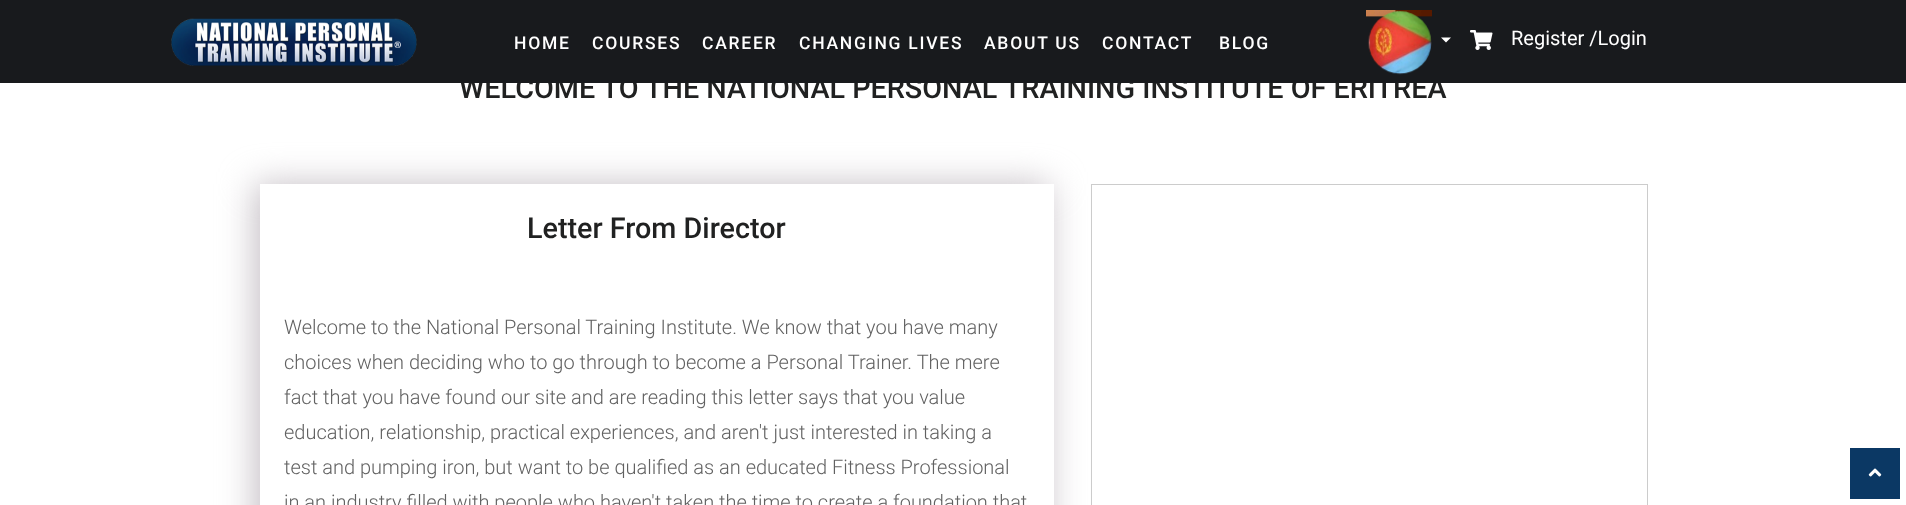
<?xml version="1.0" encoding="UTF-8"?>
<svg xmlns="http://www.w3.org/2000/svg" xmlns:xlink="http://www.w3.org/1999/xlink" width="1906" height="505">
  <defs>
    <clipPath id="clip1"><path d="M 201 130 h 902 v 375 h -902 z m 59 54 h 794 v 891 h -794 z" clip-rule="evenodd" /></clipPath>
  </defs>
  <rect width="100%" height="100%" fill="#ffffff" />
  <g clip-path="url(#clip1)">
    <rect x="255" y="184" width="794" height="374" fill="#c4bec4" filter="blur(17.5px)" />
  </g>
  <rect x="1091.5" y="184.5" width="556" height="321" fill="none" stroke="#cccccc" />
  <rect x="1850" y="448" width="50" height="51" fill="#0b3864" />
  <image x="1868" y="468" width="14" height="9" xlink:href="image4.png" />
  <text x="459" y="98" style="font-family: Roboto; font-size: 28.75px; font-weight: 500; fill: #202121">WELCOME TO THE NATIONAL PERSONAL TRAINING INSTITUTE OF ERITREA</text>
  <rect width="1906" height="83" fill="#181a1d" />
  <text x="1511" y="45" style="font-family: Roboto; font-size: 20px; fill: #ffffff">Register /Login</text>
  <image x="1470" y="30" width="23" height="20" xlink:href="image3.png" />
  <path d="M 1441 37.5 h 10 l -5 5 z" fill="#ffffff" />
  <image x="1366" y="10" width="66" height="65" xlink:href="image2.png" />
  <text x="1219" y="49" style="font-family: Roboto; font-size: 17.5px; font-weight: 500; letter-spacing: 1.75px; fill: #ffffff">BLOG</text>
  <text x="1102" y="49" style="font-family: Roboto; font-size: 17.5px; font-weight: 500; letter-spacing: 1.75px; fill: #ffffff">CONTACT</text>
  <text x="984" y="49" style="font-family: Roboto; font-size: 17.5px; font-weight: 500; letter-spacing: 1.75px; fill: #ffffff">ABOUT US</text>
  <text x="799" y="49" style="font-family: Roboto; font-size: 17.5px; font-weight: 500; letter-spacing: 1.75px; fill: #ffffff">CHANGING LIVES</text>
  <text x="702" y="49" style="font-family: Roboto; font-size: 17.5px; font-weight: 500; letter-spacing: 1.75px; fill: #ffffff">CAREER</text>
  <text x="592" y="49" style="font-family: Roboto; font-size: 17.5px; font-weight: 500; letter-spacing: 1.75px; fill: #ffffff">COURSES</text>
  <text x="514" y="49" style="font-family: Roboto; font-size: 17.5px; font-weight: 500; letter-spacing: 1.75px; fill: #ffffff">HOME</text>
  <image x="171" y="18" width="246" height="48" xlink:href="image1.png" />
  <text x="527" y="238" style="font-family: Roboto; font-size: 28.75px; font-weight: 500; fill: #202121">Letter From Director</text>
  <text x="284" y="334" style="font-family: Roboto; font-size: 20px; font-weight: 300; fill: #616161">Welcome to the National Personal Training Institute. We know that you have many</text>
  <text x="284" y="369" style="font-family: Roboto; font-size: 20px; font-weight: 300; fill: #616161">choices when deciding who to go through to become a Personal Trainer. The mere</text>
  <text x="284" y="404" style="font-family: Roboto; font-size: 20px; font-weight: 300; fill: #616161">fact that you have found our site and are reading this letter says that you value</text>
  <text x="284" y="439" style="font-family: Roboto; font-size: 20px; font-weight: 300; fill: #616161">education, relationship, practical experiences, and aren't just interested in taking a</text>
  <text x="284" y="474" style="font-family: Roboto; font-size: 20px; font-weight: 300; fill: #616161">test and pumping iron, but want to be qualified as an educated Fitness Professional</text>
  <text x="284" y="509" style="font-family: Roboto; font-size: 20px; font-weight: 300; fill: #616161">in an industry filled with people who haven't taken the time to create a foundation that</text>
</svg>
